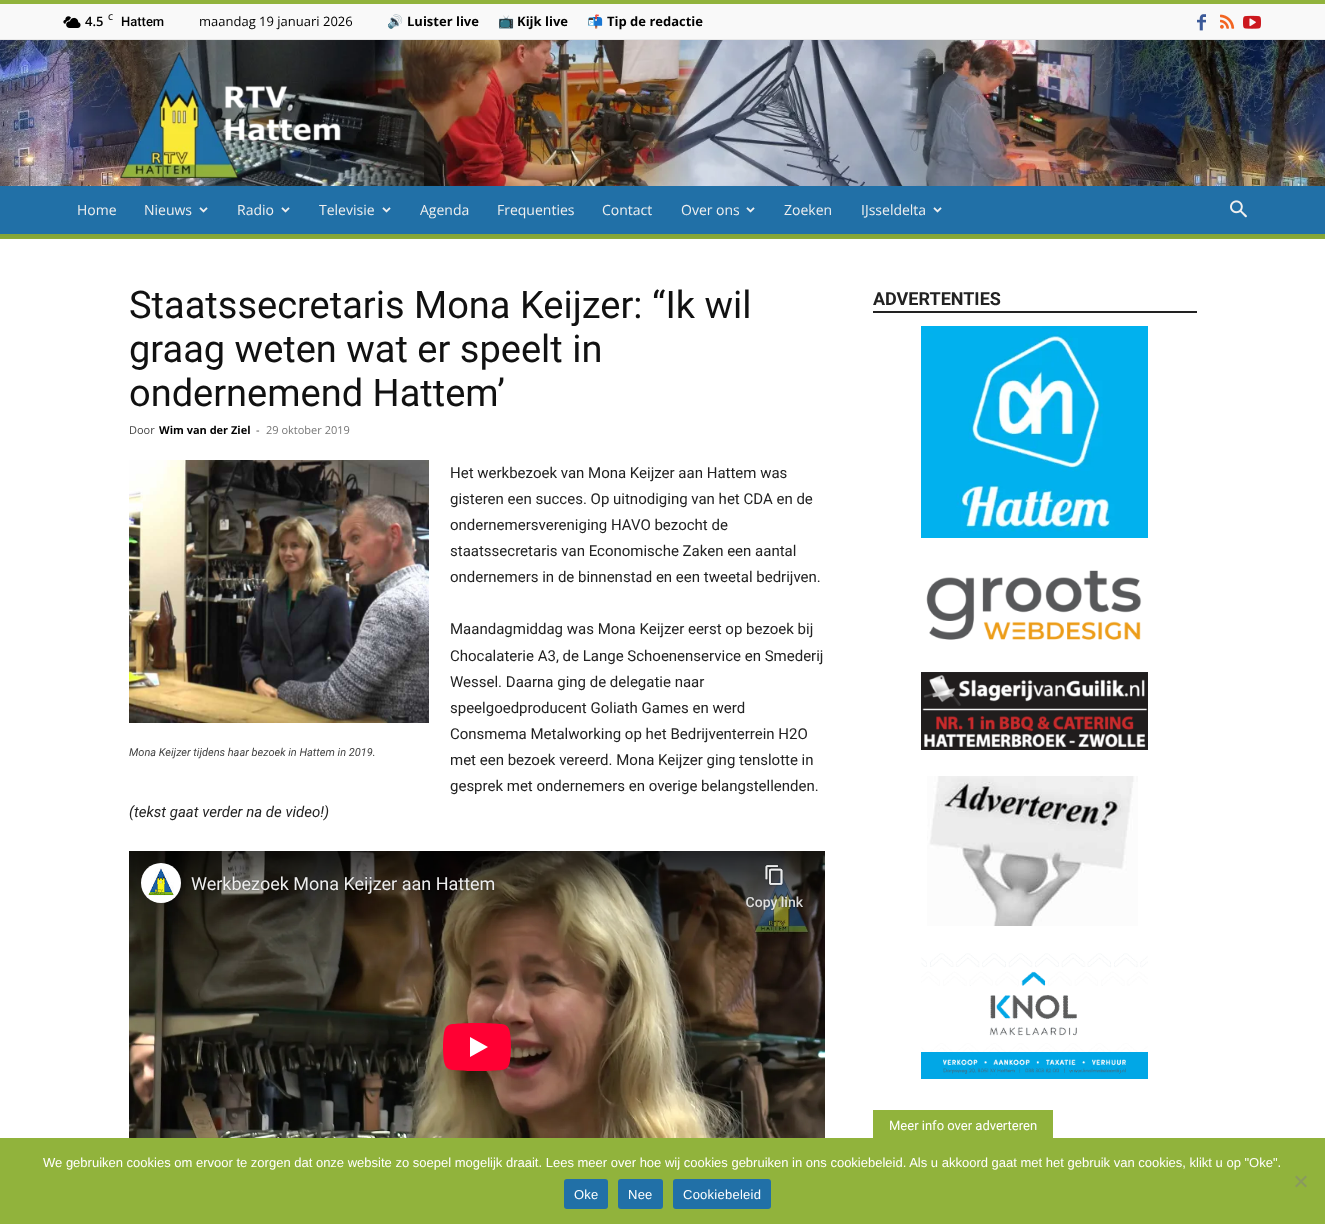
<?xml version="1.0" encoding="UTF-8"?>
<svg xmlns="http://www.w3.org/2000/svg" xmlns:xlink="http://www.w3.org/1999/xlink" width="1325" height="1224">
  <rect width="100%" height="100%" fill="#ffffff" />
  <rect y="4" width="1325" height="35" fill="#f9f9f9" />
  <rect width="1325" height="4" fill="#91b33c" />
  <rect y="39" width="1325" height="1" fill="#e9e9e9" />
  <image x="63" y="16" width="18" height="12" xlink:href="image1.png" />
  <image x="1197" y="14" width="9" height="17" xlink:href="image2.png" />
  <image x="1220" y="14" width="15" height="15" xlink:href="image3.png" />
  <image x="1243" y="15" width="18" height="14" xlink:href="image4.png" />
  <image x="0" y="40" width="1325" height="146" xlink:href="image5.png" />
  <image x="120" y="52" width="221" height="126" xlink:href="image6.png" />
  <rect y="186" width="1325" height="48" fill="#2170a7" />
  <image x="199" y="207" width="9" height="6" xlink:href="image7.png" />
  <image x="281" y="207" width="9" height="6" xlink:href="image7.png" />
  <image x="382" y="207" width="9" height="6" xlink:href="image7.png" />
  <image x="746" y="207" width="9" height="6" xlink:href="image7.png" />
  <image x="933" y="207" width="9" height="6" xlink:href="image7.png" />
  <image x="1230" y="200" width="17" height="18" xlink:href="image8.png" />
  <rect y="234" width="1325" height="5" fill="#91b33c" />
  <image x="0" y="234" width="1325" height="5" xlink:href="image9.png" />
  <image x="129" y="460" width="300" height="263" xlink:href="image10.png" />
  <image x="129" y="851" width="696" height="287" xlink:href="image11.png" />
  <rect x="873" y="311" width="324" height="2" fill="#222222" />
  <image x="921" y="326" width="227" height="212" xlink:href="image12.png" />
  <image x="926" y="570" width="216" height="70" xlink:href="image13.png" />
  <image x="921" y="672" width="227" height="78" xlink:href="image14.png" />
  <image x="927" y="776" width="211" height="150" xlink:href="image15.png" />
  <image x="921" y="953" width="227" height="126" xlink:href="image16.png" />
  <rect x="873" y="1110" width="180" height="28" fill="#91b33c" />
  <rect y="1138" width="1325" height="86" fill="#91b33c" />
  <path d="M 1305.5 1175.5 l 1.5 1.5 l -10.5 10.5 l -1.5 -1.5 z" fill="#899a5e" />
  <path d="M 1295 1177 l 1.5 -1.5 l 10.5 10.5 l -1.5 1.5 z" fill="#899a5e" />
  <rect x="564" y="1179" width="44" height="30" rx="3" fill="#2170a7" />
  <rect x="618" y="1179" width="45" height="30" rx="3" fill="#2170a7" />
  <rect x="673" y="1179" width="98" height="30" rx="3" fill="#2170a7" />
  <text x="85" y="26" style="font-family: Open Sans; font-size: 13px; font-weight: 600; fill: #000000">4.5</text>
  <text x="108" y="20" style="font-family: Open Sans; font-size: 8px; font-weight: 600; fill: #000000">C</text>
  <text x="121" y="26" style="font-family: Roboto; font-size: 13px; font-weight: 500; fill: #000000">Hattem</text>
  <text x="199" y="26" style="font-family: Open Sans; font-size: 13px; fill: #000000">maandag 19 januari 2026</text>
  <text x="387" y="26" style="font-family: Noto Color Emoji; font-size: 13px; font-weight: bold; fill: #000000">🔊</text>
  <text x="407" y="26" style="font-family: Open Sans; font-size: 13px; font-weight: bold; fill: #000000">Luister live</text>
  <text x="498" y="26" style="font-family: Noto Color Emoji; font-size: 13px; font-weight: bold; fill: #000000">📺</text>
  <text x="517" y="26" style="font-family: Open Sans; font-size: 13px; font-weight: bold; fill: #000000">Kijk live</text>
  <text x="587" y="26" style="font-family: Noto Color Emoji; font-size: 13px; font-weight: bold; fill: #000000">📬</text>
  <text x="607" y="26" style="font-family: Open Sans; font-size: 13px; font-weight: bold; fill: #000000">Tip de redactie</text>
  <text x="77" y="215" style="font-family: Open Sans; font-size: 14px; fill: #efefef">Home</text>
  <text x="144" y="215" style="font-family: Open Sans; font-size: 14px; fill: #efefef">Nieuws</text>
  <text x="237" y="215" style="font-family: Open Sans; font-size: 14px; fill: #efefef">Radio</text>
  <text x="319" y="215" style="font-family: Open Sans; font-size: 14px; fill: #efefef">Televisie</text>
  <text x="420" y="215" style="font-family: Open Sans; font-size: 14px; fill: #efefef">Agenda</text>
  <text x="497" y="215" style="font-family: Open Sans; font-size: 14px; fill: #efefef">Frequenties</text>
  <text x="602" y="215" style="font-family: Open Sans; font-size: 14px; fill: #efefef">Contact</text>
  <text x="681" y="215" style="font-family: Open Sans; font-size: 14px; fill: #efefef">Over ons</text>
  <text x="784" y="215" style="font-family: Open Sans; font-size: 14px; fill: #efefef">Zoeken</text>
  <text x="861" y="215" style="font-family: Open Sans; font-size: 14px; fill: #efefef">IJsseldelta</text>
  <text x="129" y="318" style="font-family: Roboto; font-size: 38px; fill: #111111">Staatssecretaris Mona Keijzer: “Ik wil</text>
  <text x="129" y="362" style="font-family: Roboto; font-size: 38px; fill: #111111">graag weten wat er speelt in</text>
  <text x="129" y="406" style="font-family: Roboto; font-size: 38px; fill: #111111">ondernemend Hattem’</text>
  <text x="129" y="434" style="font-family: Open Sans; font-size: 11px; fill: #444444">Door</text>
  <text x="159" y="434" style="font-family: Open Sans; font-size: 11px; font-weight: bold; fill: #000000">Wim van der Ziel</text>
  <text x="256" y="434" style="font-family: Open Sans; font-size: 11px; fill: #444444">-</text>
  <text x="266" y="434" style="font-family: Open Sans; font-size: 11px; fill: #767676">29 oktober 2019</text>
  <text x="450" y="478" style="font-family: Roboto; font-size: 15px; fill: #222222">Het werkbezoek van Mona Keijzer aan Hattem was</text>
  <text x="450" y="504" style="font-family: Roboto; font-size: 15px; fill: #222222">gisteren een succes. Op uitnodiging van het CDA en de</text>
  <text x="450" y="530" style="font-family: Roboto; font-size: 15px; fill: #222222">ondernemersvereniging HAVO bezocht de</text>
  <text x="450" y="556" style="font-family: Roboto; font-size: 15px; fill: #222222">staatssecretaris van Economische Zaken een aantal</text>
  <text x="450" y="582" style="font-family: Roboto; font-size: 15px; fill: #222222">ondernemers in de binnenstad en een tweetal bedrijven.</text>
  <text x="450" y="634" style="font-family: Roboto; font-size: 15px; fill: #222222">Maandagmiddag was Mona Keijzer eerst op bezoek bij</text>
  <text x="450" y="661" style="font-family: Roboto; font-size: 15px; fill: #222222">Chocalaterie A3, de Lange Schoenenservice en Smederij</text>
  <text x="450" y="687" style="font-family: Roboto; font-size: 15px; fill: #222222">Wessel. Daarna ging de delegatie naar</text>
  <text x="450" y="713" style="font-family: Roboto; font-size: 15px; fill: #222222">speelgoedproducent Goliath Games en werd</text>
  <text x="450" y="739" style="font-family: Roboto; font-size: 15px; fill: #222222">Consmema Metalworking op het Bedrijventerrein H2O</text>
  <text x="450" y="765" style="font-family: Roboto; font-size: 15px; fill: #222222">met een bezoek vereerd. Mona Keijzer ging tenslotte in</text>
  <text x="450" y="791" style="font-family: Roboto; font-size: 15px; fill: #222222">gesprek met ondernemers en overige belangstellenden.</text>
  <text x="129" y="817" style="font-family: Roboto; font-size: 15px; font-style: italic; fill: #222222">(tekst gaat verder na de video!)</text>
  <text x="129" y="756" style="font-family: Roboto; font-size: 11px; font-style: italic; fill: #444444">Mona Keijzer tijdens haar bezoek in Hattem in 2019.</text>
  <text x="873" y="305" style="font-family: Roboto; font-size: 18px; font-weight: bold; fill: #222222">ADVERTENTIES</text>
  <text x="889" y="1130" style="font-family: Roboto; font-size: 13px; fill: #ffffff">Meer info over adverteren</text>
  <text x="43" y="1167" style="font-family: Liberation Sans; font-size: 13px; fill: #ffffff">We gebruiken cookies om ervoor te zorgen dat onze website zo soepel mogelijk draait. Lees meer over hoe wij cookies gebruiken in ons cookiebeleid. Als u akkoord gaat met het gebruik van cookies, klikt u op "Oke".</text>
  <text x="574" y="1199" style="font-family: Liberation Sans; font-size: 13px; letter-spacing: 0.25px; fill: #ffffff">Oke</text>
  <text x="628" y="1199" style="font-family: Liberation Sans; font-size: 13px; letter-spacing: 0.25px; fill: #ffffff">Nee</text>
  <text x="683" y="1199" style="font-family: Liberation Sans; font-size: 13px; letter-spacing: 0.25px; fill: #ffffff">Cookiebeleid</text>
</svg>
